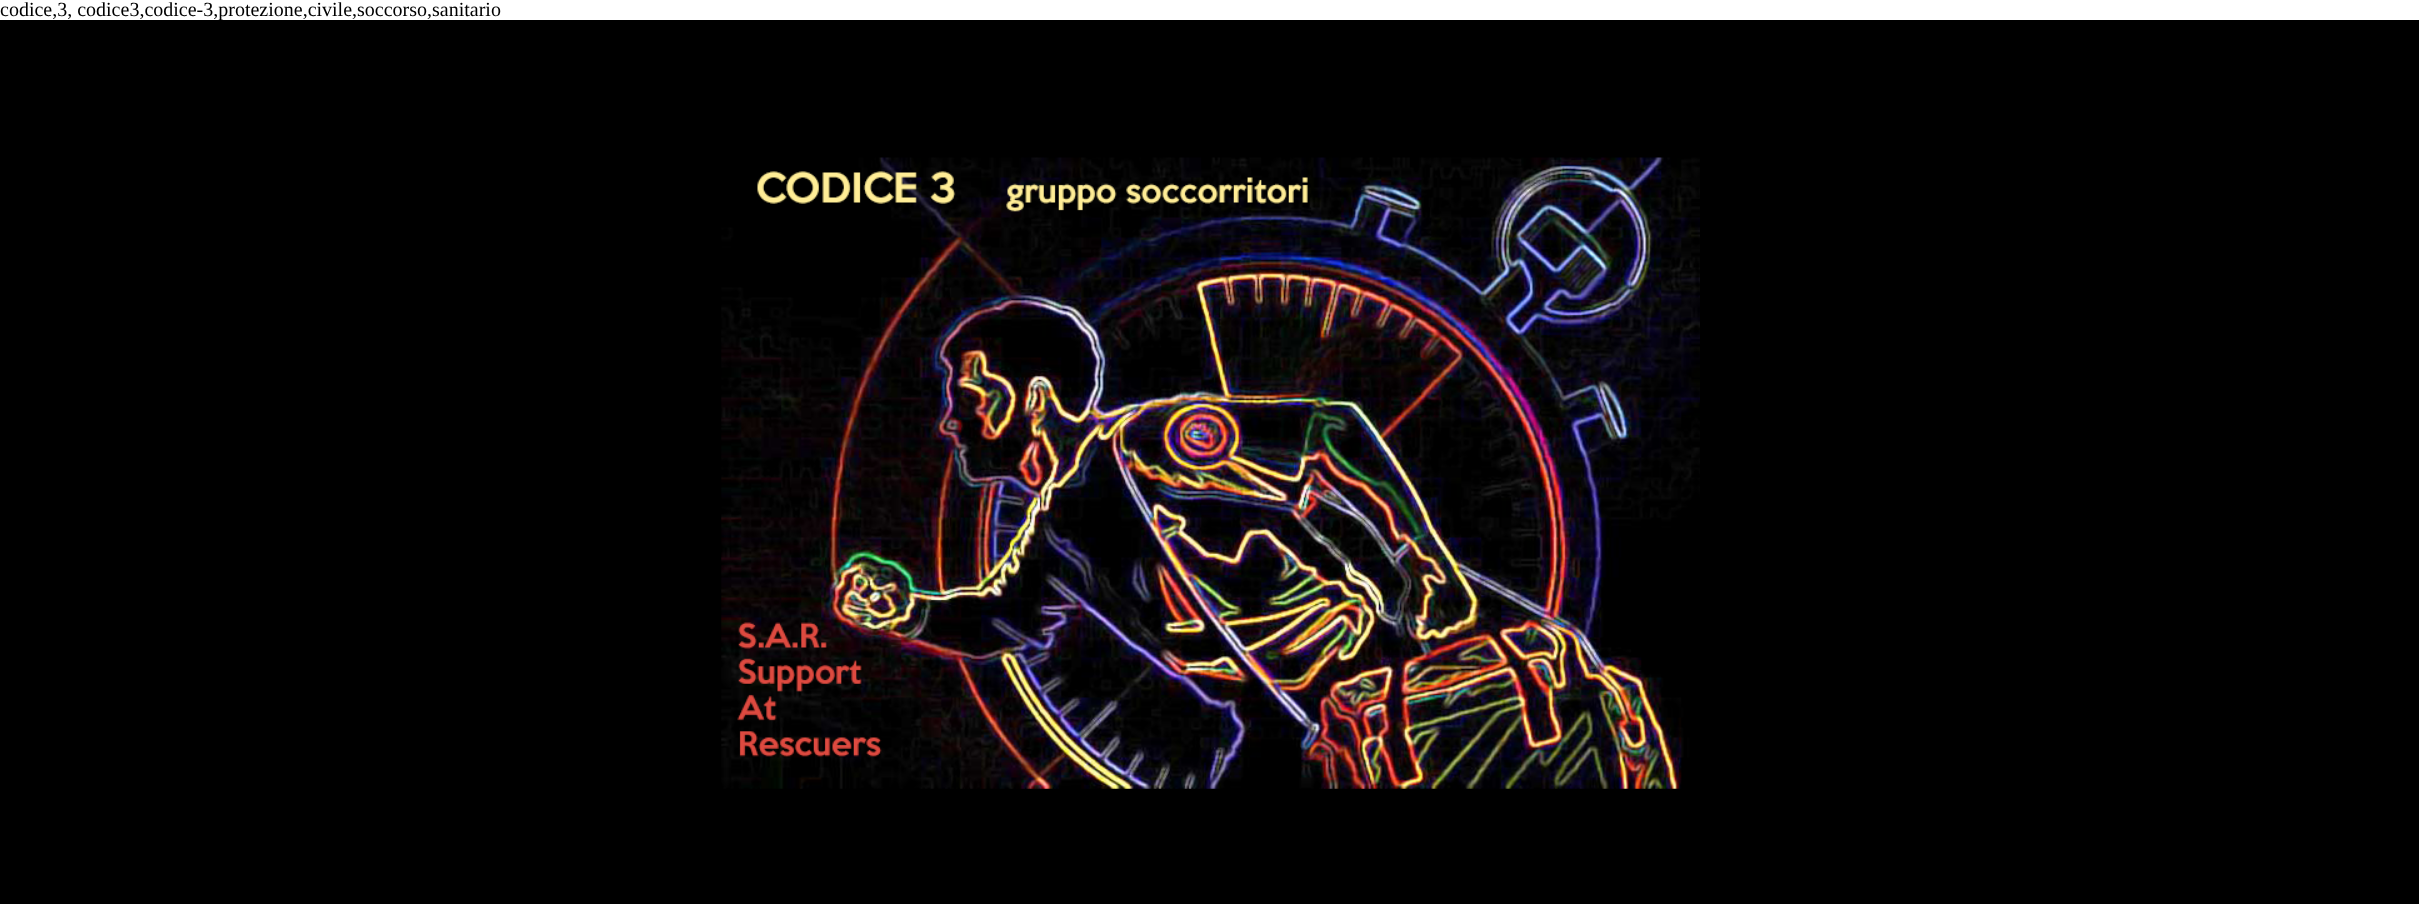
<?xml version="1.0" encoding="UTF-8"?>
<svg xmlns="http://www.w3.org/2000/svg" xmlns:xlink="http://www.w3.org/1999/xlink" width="2419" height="904">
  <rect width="100%" height="100%" fill="#ffffff" />
  <rect y="20" width="2419" height="884" fill="#000000" />
  <image x="721" y="157" width="979" height="632" xlink:href="image1.png" />
  <text x="0" y="16" style="font-family: Liberation Serif; font-size: 20px; fill: #000000">codice,3, codice3,codice-3,protezione,civile,soccorso,sanitario</text>
</svg>
